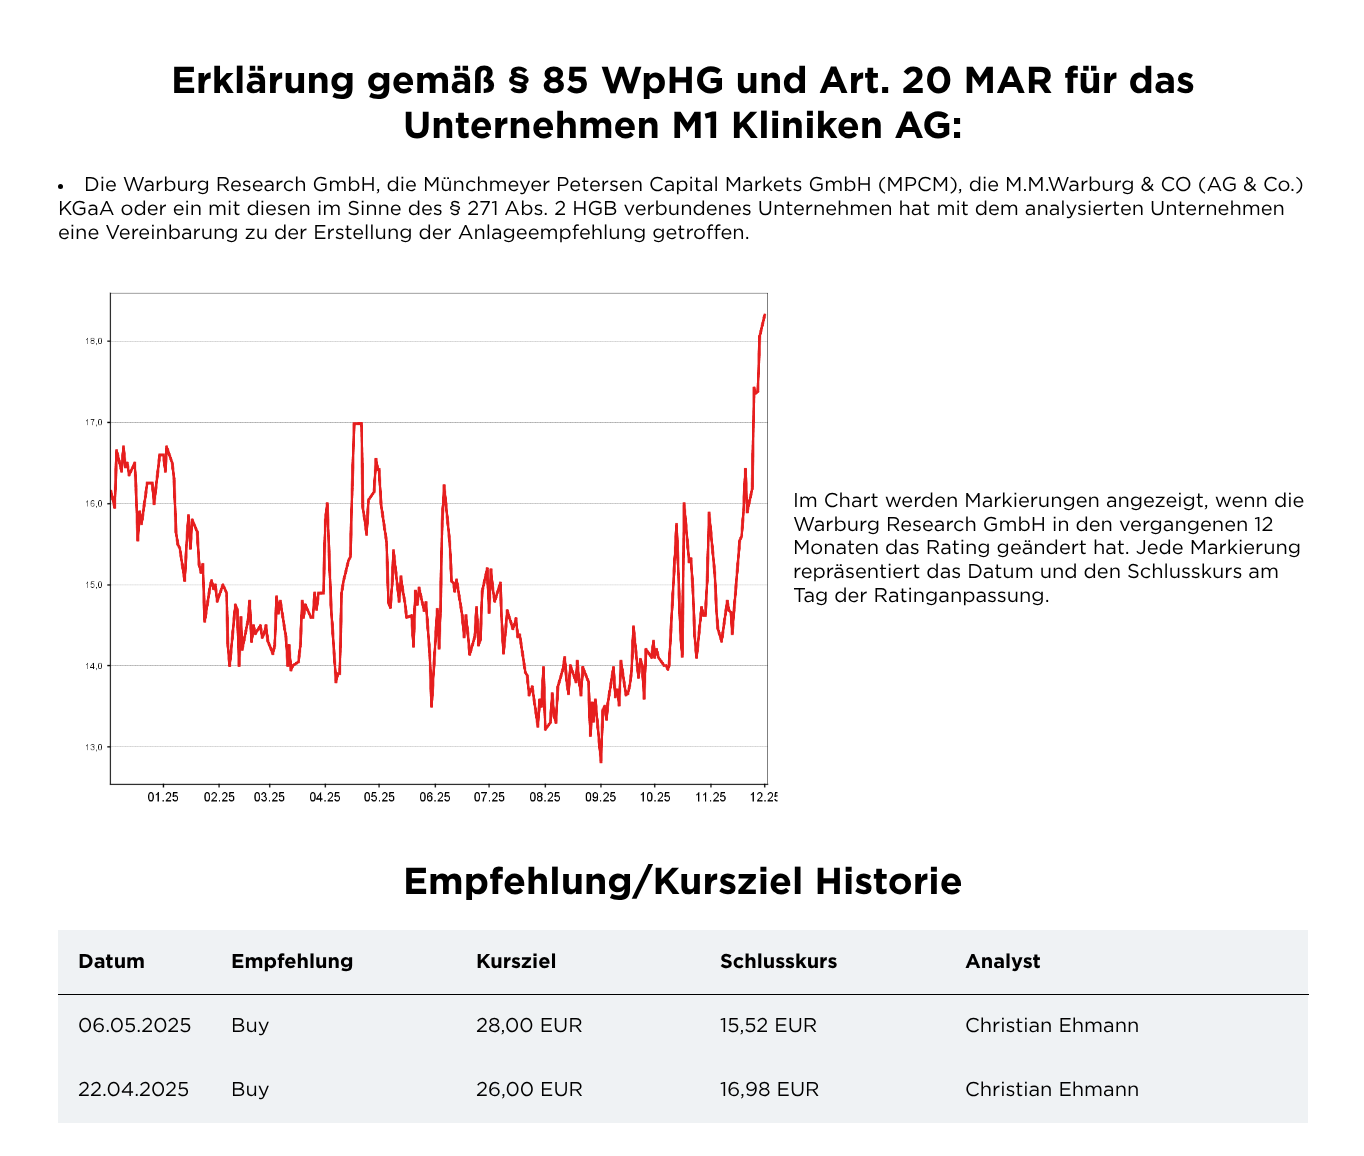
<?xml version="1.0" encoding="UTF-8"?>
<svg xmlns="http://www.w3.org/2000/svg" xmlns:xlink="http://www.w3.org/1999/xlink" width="1364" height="1156">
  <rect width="100%" height="100%" fill="#ffffff" />
  <circle cx="60.5" cy="186.5" r="2.5" fill="#000000" />
  <image x="86" y="292" width="692" height="510" xlink:href="image1.png" />
  <rect x="58" y="930" width="1250" height="193" fill="#eff2f4" />
  <rect x="58" y="994" width="1251" height="1" fill="#000000" />
  <text x="171" y="93" style="font-family: Gotham; font-size: 37.5px; font-weight: bold; fill: #000000">Erklärung gemäß § 85 WpHG und Art. 20 MAR für das</text>
  <text x="403" y="138" style="font-family: Gotham; font-size: 37.5px; font-weight: bold; fill: #000000">Unternehmen M1 Kliniken AG:</text>
  <text x="84" y="191" style="font-family: Gotham; font-size: 20px; fill: #000000">Die Warburg Research GmbH, die Münchmeyer Petersen Capital Markets GmbH (MPCM), die M.M.Warburg &amp; CO (AG &amp; Co.)</text>
  <text x="58" y="215" style="font-family: Gotham; font-size: 20px; fill: #000000">KGaA oder ein mit diesen im Sinne des § 271 Abs. 2 HGB verbundenes Unternehmen hat mit dem analysierten Unternehmen</text>
  <text x="58" y="239" style="font-family: Gotham; font-size: 20px; fill: #000000">eine Vereinbarung zu der Erstellung der Anlageempfehlung getroffen.</text>
  <text x="793" y="507" style="font-family: Gotham; font-size: 20px; fill: #000000">Im Chart werden Markierungen angezeigt, wenn die</text>
  <text x="793" y="531" style="font-family: Gotham; font-size: 20px; fill: #000000">Warburg Research GmbH in den vergangenen 12</text>
  <text x="793" y="554" style="font-family: Gotham; font-size: 20px; fill: #000000">Monaten das Rating geändert hat. Jede Markierung</text>
  <text x="793" y="578" style="font-family: Gotham; font-size: 20px; fill: #000000">repräsentiert das Datum und den Schlusskurs am</text>
  <text x="793" y="602" style="font-family: Gotham; font-size: 20px; fill: #000000">Tag der Ratinganpassung.</text>
  <text x="403" y="894" style="font-family: Gotham; font-size: 37.5px; font-weight: bold; fill: #000000">Empfehlung/Kursziel Historie</text>
  <text x="78" y="968" style="font-family: Gotham; font-size: 20px; font-weight: bold; fill: #000000">Datum</text>
  <text x="231" y="968" style="font-family: Gotham; font-size: 20px; font-weight: bold; fill: #000000">Empfehlung</text>
  <text x="476" y="968" style="font-family: Gotham; font-size: 20px; font-weight: bold; fill: #000000">Kursziel</text>
  <text x="720" y="968" style="font-family: Gotham; font-size: 20px; font-weight: bold; fill: #000000">Schlusskurs</text>
  <text x="965" y="968" style="font-family: Gotham; font-size: 20px; font-weight: bold; fill: #000000">Analyst</text>
  <text x="78" y="1032" style="font-family: Gotham; font-size: 20px; fill: #000000">06.05.2025</text>
  <text x="231" y="1032" style="font-family: Gotham; font-size: 20px; fill: #000000">Buy</text>
  <text x="476" y="1032" style="font-family: Gotham; font-size: 20px; fill: #000000">28,00 EUR</text>
  <text x="720" y="1032" style="font-family: Gotham; font-size: 20px; fill: #000000">15,52 EUR</text>
  <text x="965" y="1032" style="font-family: Gotham; font-size: 20px; fill: #000000">Christian Ehmann</text>
  <text x="78" y="1096" style="font-family: Gotham; font-size: 20px; fill: #000000">22.04.2025</text>
  <text x="231" y="1096" style="font-family: Gotham; font-size: 20px; fill: #000000">Buy</text>
  <text x="476" y="1096" style="font-family: Gotham; font-size: 20px; fill: #000000">26,00 EUR</text>
  <text x="720" y="1096" style="font-family: Gotham; font-size: 20px; fill: #000000">16,98 EUR</text>
  <text x="965" y="1096" style="font-family: Gotham; font-size: 20px; fill: #000000">Christian Ehmann</text>
</svg>
